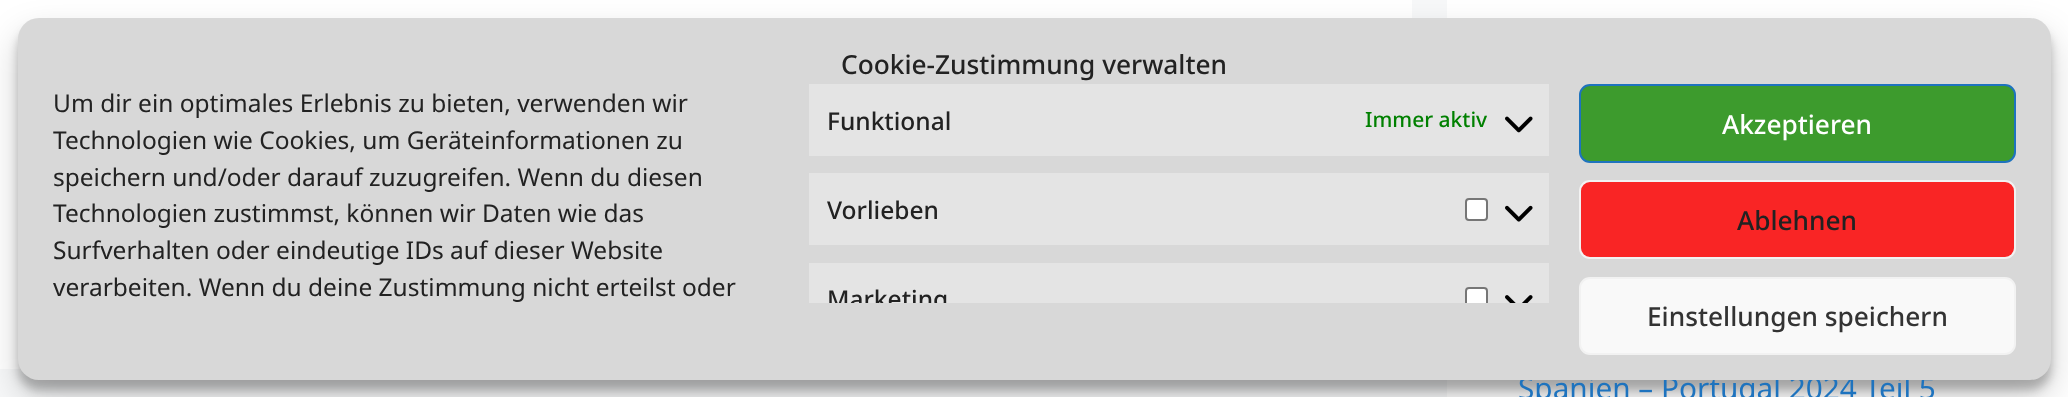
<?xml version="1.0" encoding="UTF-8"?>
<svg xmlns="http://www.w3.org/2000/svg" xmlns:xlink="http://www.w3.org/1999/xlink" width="2068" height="397">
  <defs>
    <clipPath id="clip1"><rect x="53" y="84" width="1508" height="219" /></clipPath>
  </defs>
  <rect width="100%" height="100%" fill="#f7f8f9" />
  <rect width="1412" height="369" fill="#ffffff" />
  <rect x="1447" width="621" height="397" fill="#ffffff" />
  <rect x="18" y="28" width="2033" height="362" rx="21" fill="#000000" fill-opacity="0.23" filter="blur(5px)" />
  <rect x="18" y="35" width="2033" height="362" rx="21" fill="#000000" fill-opacity="0.19" filter="blur(17.5px)" />
  <text x="1518" y="399" style="font-family: Noto Sans; font-size: 29.75px; fill: #1e73be">Spanien – Portugal 2024 Teil 5</text>
  <rect x="18" y="18" width="2033" height="362" rx="21" fill="#d8d8d8" />
  <rect x="809" y="263" width="740" height="40" fill="#e4e4e4" />
  <image x="1505" y="295" width="28" height="8" xlink:href="image3.png" />
  <rect x="809" y="173" width="740" height="72" fill="#e4e4e4" />
  <image x="1505" y="205" width="28" height="17" xlink:href="image2.png" />
  <rect x="809" y="84" width="740" height="72" fill="#e4e4e4" />
  <image x="1505" y="116" width="28" height="17" xlink:href="image1.png" />
  <path d="M 1469 287 h 15 c 2 0 4 2 4 4 v 12 h -23 v -12 c 0 -2 2 -4 4 -4 z" fill="#ffffff" />
  <g clip-path="url(#clip1)">
    <rect x="1466" y="288" width="21" height="21" rx="3" fill="none" stroke="#767676" stroke-width="2" />
    <text x="827" y="308" style="font-family: Noto Sans; font-size: 24.5px; font-weight: 500; fill: #222222">Marketing</text>
  </g>
  <rect x="1466" y="199" width="21" height="21" rx="3" fill="#ffffff" stroke="#767676" stroke-width="2" />
  <text x="827" y="219" style="font-family: Noto Sans; font-size: 24.5px; font-weight: 500; fill: #222222">Vorlieben</text>
  <text x="1365" y="127" style="font-family: Noto Sans; font-size: 21px; font-weight: 500; fill: #008000">Immer aktiv</text>
  <text x="827" y="130" style="font-family: Noto Sans; font-size: 24.5px; font-weight: 500; fill: #222222">Funktional</text>
  <text x="53" y="296" style="font-family: Noto Sans; font-size: 24.5px; fill: #222222">verarbeiten. Wenn du deine Zustimmung nicht erteilst oder</text>
  <text x="53" y="259" style="font-family: Noto Sans; font-size: 24.5px; fill: #222222">Surfverhalten oder eindeutige IDs auf dieser Website</text>
  <g clip-path="url(#clip1)">
    <text x="53" y="222" style="font-family: Noto Sans; font-size: 24.5px; fill: #222222">Technologien zustimmst, können wir Daten wie das</text>
  </g>
  <text x="53" y="186" style="font-family: Noto Sans; font-size: 24.5px; fill: #222222">speichern und/oder darauf zuzugreifen. Wenn du diesen</text>
  <g clip-path="url(#clip1)">
    <text x="53" y="149" style="font-family: Noto Sans; font-size: 24.5px; fill: #222222">Technologien wie Cookies, um Geräteinformationen zu</text>
  </g>
  <text x="53" y="112" style="font-family: Noto Sans; font-size: 24.5px; fill: #222222">Um dir ein optimales Erlebnis zu bieten, verwenden wir</text>
  <rect x="1580" y="278" width="435" height="76" rx="10" fill="#f9f9f9" stroke="#f2f2f2" stroke-width="2" />
  <text x="1647" y="326" style="font-family: Noto Sans; font-size: 26.25px; font-weight: 500; fill: #333333">Einstellungen speichern</text>
  <rect x="1580" y="181" width="435" height="77" rx="10" fill="#f92525" stroke="#f2f2f2" stroke-width="2" />
  <text x="1737" y="230" style="font-family: Noto Sans; font-size: 26.25px; font-weight: 500; fill: #222222">Ablehnen</text>
  <rect x="1580" y="85" width="435" height="77" rx="10" fill="#3d9b2d" stroke="#1e73be" stroke-width="2" />
  <text x="1722" y="134" style="font-family: Noto Sans; font-size: 26.25px; font-weight: 500; fill: #ffffff">Akzeptieren</text>
  <text x="841" y="74" style="font-family: Noto Sans; font-size: 26.25px; font-weight: 500; fill: #222222">Cookie-Zustimmung verwalten</text>
</svg>
